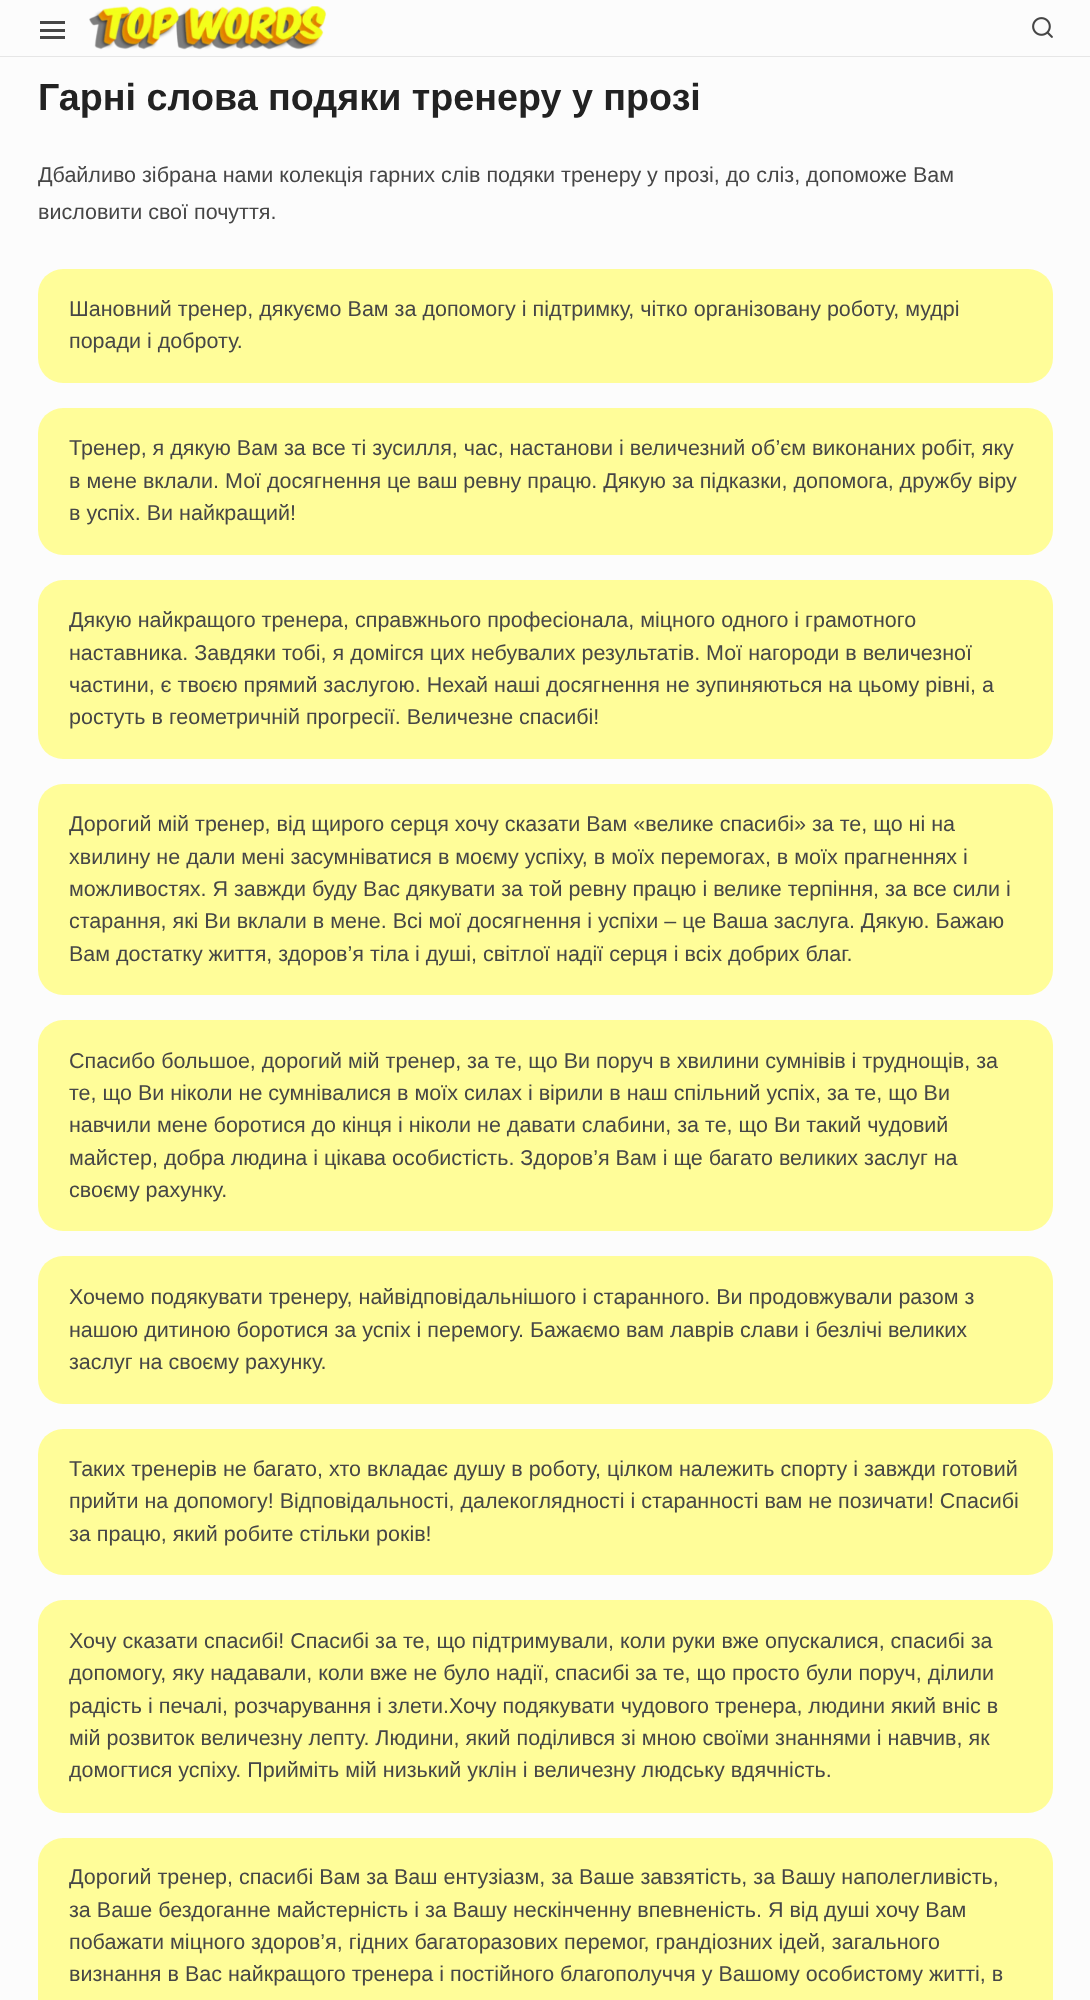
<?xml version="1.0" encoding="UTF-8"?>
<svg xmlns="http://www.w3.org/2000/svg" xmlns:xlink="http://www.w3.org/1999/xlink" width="1090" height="2000">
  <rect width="100%" height="100%" fill="#fcfcfc" />
  <rect y="56" width="1090" height="1" fill="#e6e6e6" />
  <rect x="40" y="21" width="25" height="3" fill="#464646" />
  <rect x="40" y="29" width="25" height="3" fill="#464646" />
  <rect x="40" y="36" width="25" height="3" fill="#464646" />
  <image x="89" y="6" width="238" height="44" xlink:href="image1.png" />
  <image x="1032" y="17" width="21" height="21" xlink:href="image2.png" />
  <rect x="38" y="269" width="1015" height="114" rx="25" fill="#fffd99" />
  <rect x="38" y="408" width="1015" height="147" rx="25" fill="#fffd99" />
  <rect x="38" y="580" width="1015" height="179" rx="25" fill="#fffd99" />
  <rect x="38" y="784" width="1015" height="211" rx="25" fill="#fffd99" />
  <rect x="38" y="1020" width="1015" height="211" rx="25" fill="#fffd99" />
  <rect x="38" y="1256" width="1015" height="148" rx="25" fill="#fffd99" />
  <rect x="38" y="1429" width="1015" height="146" rx="25" fill="#fffd99" />
  <rect x="38" y="1600" width="1015" height="213" rx="25" fill="#fffd99" />
  <rect x="38" y="1838" width="1015" height="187" rx="25" fill="#fffd99" />
  <text x="38" y="110" style="font-family: Liberation Sans; font-size: 37.7px; font-weight: bold; fill: #222222">Гарні слова подяки тренеру у прозі</text>
  <text x="38" y="182" style="font-family: Liberation Sans; font-size: 21.5px; fill: #464646">Дбайливо зібрана нами колекція гарних слів подяки тренеру у прозі, до сліз, допоможе Вам</text>
  <text x="38" y="219" style="font-family: Liberation Sans; font-size: 21.5px; fill: #464646">висловити свої почуття.</text>
  <text x="69" y="316" style="font-family: Liberation Sans; font-size: 21.5px; fill: #464646">Шановний тренер, дякуємо Вам за допомогу і підтримку, чітко організовану роботу, мудрі</text>
  <text x="69" y="348" style="font-family: Liberation Sans; font-size: 21.5px; fill: #464646">поради і доброту.</text>
  <text x="69" y="455" style="font-family: Liberation Sans; font-size: 21.5px; fill: #464646">Тренер, я дякую Вам за все ті зусилля, час, настанови і величезний об’єм виконаних робіт, яку</text>
  <text x="69" y="488" style="font-family: Liberation Sans; font-size: 21.5px; fill: #464646">в мене вклали. Мої досягнення це ваш ревну працю. Дякую за підказки, допомога, дружбу віру</text>
  <text x="69" y="520" style="font-family: Liberation Sans; font-size: 21.5px; fill: #464646">в успіх. Ви найкращий!</text>
  <text x="69" y="627" style="font-family: Liberation Sans; font-size: 21.5px; fill: #464646">Дякую найкращого тренера, справжнього професіонала, міцного одного і грамотного</text>
  <text x="69" y="660" style="font-family: Liberation Sans; font-size: 21.5px; fill: #464646">наставника. Завдяки тобі, я домігся цих небувалих результатів. Мої нагороди в величезної</text>
  <text x="69" y="692" style="font-family: Liberation Sans; font-size: 21.5px; fill: #464646">частини, є твоєю прямий заслугою. Нехай наші досягнення не зупиняються на цьому рівні, а</text>
  <text x="69" y="724" style="font-family: Liberation Sans; font-size: 21.5px; fill: #464646">ростуть в геометричній прогресії. Величезне спасибі!</text>
  <text x="69" y="831" style="font-family: Liberation Sans; font-size: 21.5px; fill: #464646">Дорогий мій тренер, від щирого серця хочу сказати Вам «велике спасибі» за те, що ні на</text>
  <text x="69" y="864" style="font-family: Liberation Sans; font-size: 21.5px; fill: #464646">хвилину не дали мені засумніватися в моєму успіху, в моїх перемогах, в моїх прагненнях і</text>
  <text x="69" y="896" style="font-family: Liberation Sans; font-size: 21.5px; fill: #464646">можливостях. Я завжди буду Вас дякувати за той ревну працю і велике терпіння, за все сили і</text>
  <text x="69" y="928" style="font-family: Liberation Sans; font-size: 21.5px; fill: #464646">старання, які Ви вклали в мене. Всі мої досягнення і успіхи – це Ваша заслуга. Дякую. Бажаю</text>
  <text x="69" y="961" style="font-family: Liberation Sans; font-size: 21.5px; fill: #464646">Вам достатку життя, здоров’я тіла і душі, світлої надії серця і всіх добрих благ.</text>
  <text x="69" y="1068" style="font-family: Liberation Sans; font-size: 21.5px; fill: #464646">Спасибо большое, дорогий мій тренер, за те, що Ви поруч в хвилини сумнівів і труднощів, за</text>
  <text x="69" y="1100" style="font-family: Liberation Sans; font-size: 21.5px; fill: #464646">те, що Ви ніколи не сумнівалися в моїх силах і вірили в наш спільний успіх, за те, що Ви</text>
  <text x="69" y="1132" style="font-family: Liberation Sans; font-size: 21.5px; fill: #464646">навчили мене боротися до кінця і ніколи не давати слабини, за те, що Ви такий чудовий</text>
  <text x="69" y="1165" style="font-family: Liberation Sans; font-size: 21.5px; fill: #464646">майстер, добра людина і цікава особистість. Здоров’я Вам і ще багато великих заслуг на</text>
  <text x="69" y="1197" style="font-family: Liberation Sans; font-size: 21.5px; fill: #464646">своєму рахунку.</text>
  <text x="69" y="1304" style="font-family: Liberation Sans; font-size: 21.5px; fill: #464646">Хочемо подякувати тренеру, найвідповідальнішого і старанного. Ви продовжували разом з</text>
  <text x="69" y="1337" style="font-family: Liberation Sans; font-size: 21.5px; fill: #464646">нашою дитиною боротися за успіх і перемогу. Бажаємо вам лаврів слави і безлічі великих</text>
  <text x="69" y="1369" style="font-family: Liberation Sans; font-size: 21.5px; fill: #464646">заслуг на своєму рахунку.</text>
  <text x="69" y="1476" style="font-family: Liberation Sans; font-size: 21.5px; fill: #464646">Таких тренерів не багато, хто вкладає душу в роботу, цілком належить спорту і завжди готовий</text>
  <text x="69" y="1508" style="font-family: Liberation Sans; font-size: 21.5px; fill: #464646">прийти на допомогу! Відповідальності, далекоглядності і старанності вам не позичати! Спасибі</text>
  <text x="69" y="1541" style="font-family: Liberation Sans; font-size: 21.5px; fill: #464646">за працю, який робите стільки років!</text>
  <text x="69" y="1648" style="font-family: Liberation Sans; font-size: 21.5px; fill: #464646">Хочу сказати спасибі! Спасибі за те, що підтримували, коли руки вже опускалися, спасибі за</text>
  <text x="69" y="1680" style="font-family: Liberation Sans; font-size: 21.5px; fill: #464646">допомогу, яку надавали, коли вже не було надії, спасибі за те, що просто були поруч, ділили</text>
  <text x="69" y="1713" style="font-family: Liberation Sans; font-size: 21.5px; fill: #464646">радість і печалі, розчарування і злети.Хочу подякувати чудового тренера, людини який вніс в</text>
  <text x="69" y="1745" style="font-family: Liberation Sans; font-size: 21.5px; fill: #464646">мій розвиток величезну лепту. Людини, який поділився зі мною своїми знаннями і навчив, як</text>
  <text x="69" y="1777" style="font-family: Liberation Sans; font-size: 21.5px; fill: #464646">домогтися успіху. Прийміть мій низький уклін і величезну людську вдячність.</text>
  <text x="69" y="1884" style="font-family: Liberation Sans; font-size: 21.5px; fill: #464646">Дорогий тренер, спасибі Вам за Ваш ентузіазм, за Ваше завзятість, за Вашу наполегливість,</text>
  <text x="69" y="1917" style="font-family: Liberation Sans; font-size: 21.5px; fill: #464646">за Ваше бездоганне майстерність і за Вашу нескінченну впевненість. Я від душі хочу Вам</text>
  <text x="69" y="1949" style="font-family: Liberation Sans; font-size: 21.5px; fill: #464646">побажати міцного здоров’я, гідних багаторазових перемог, грандіозних ідей, загального</text>
  <text x="69" y="1981" style="font-family: Liberation Sans; font-size: 21.5px; fill: #464646">визнання в Вас найкращого тренера і постійного благополуччя у Вашому особистому житті, в</text>
</svg>
